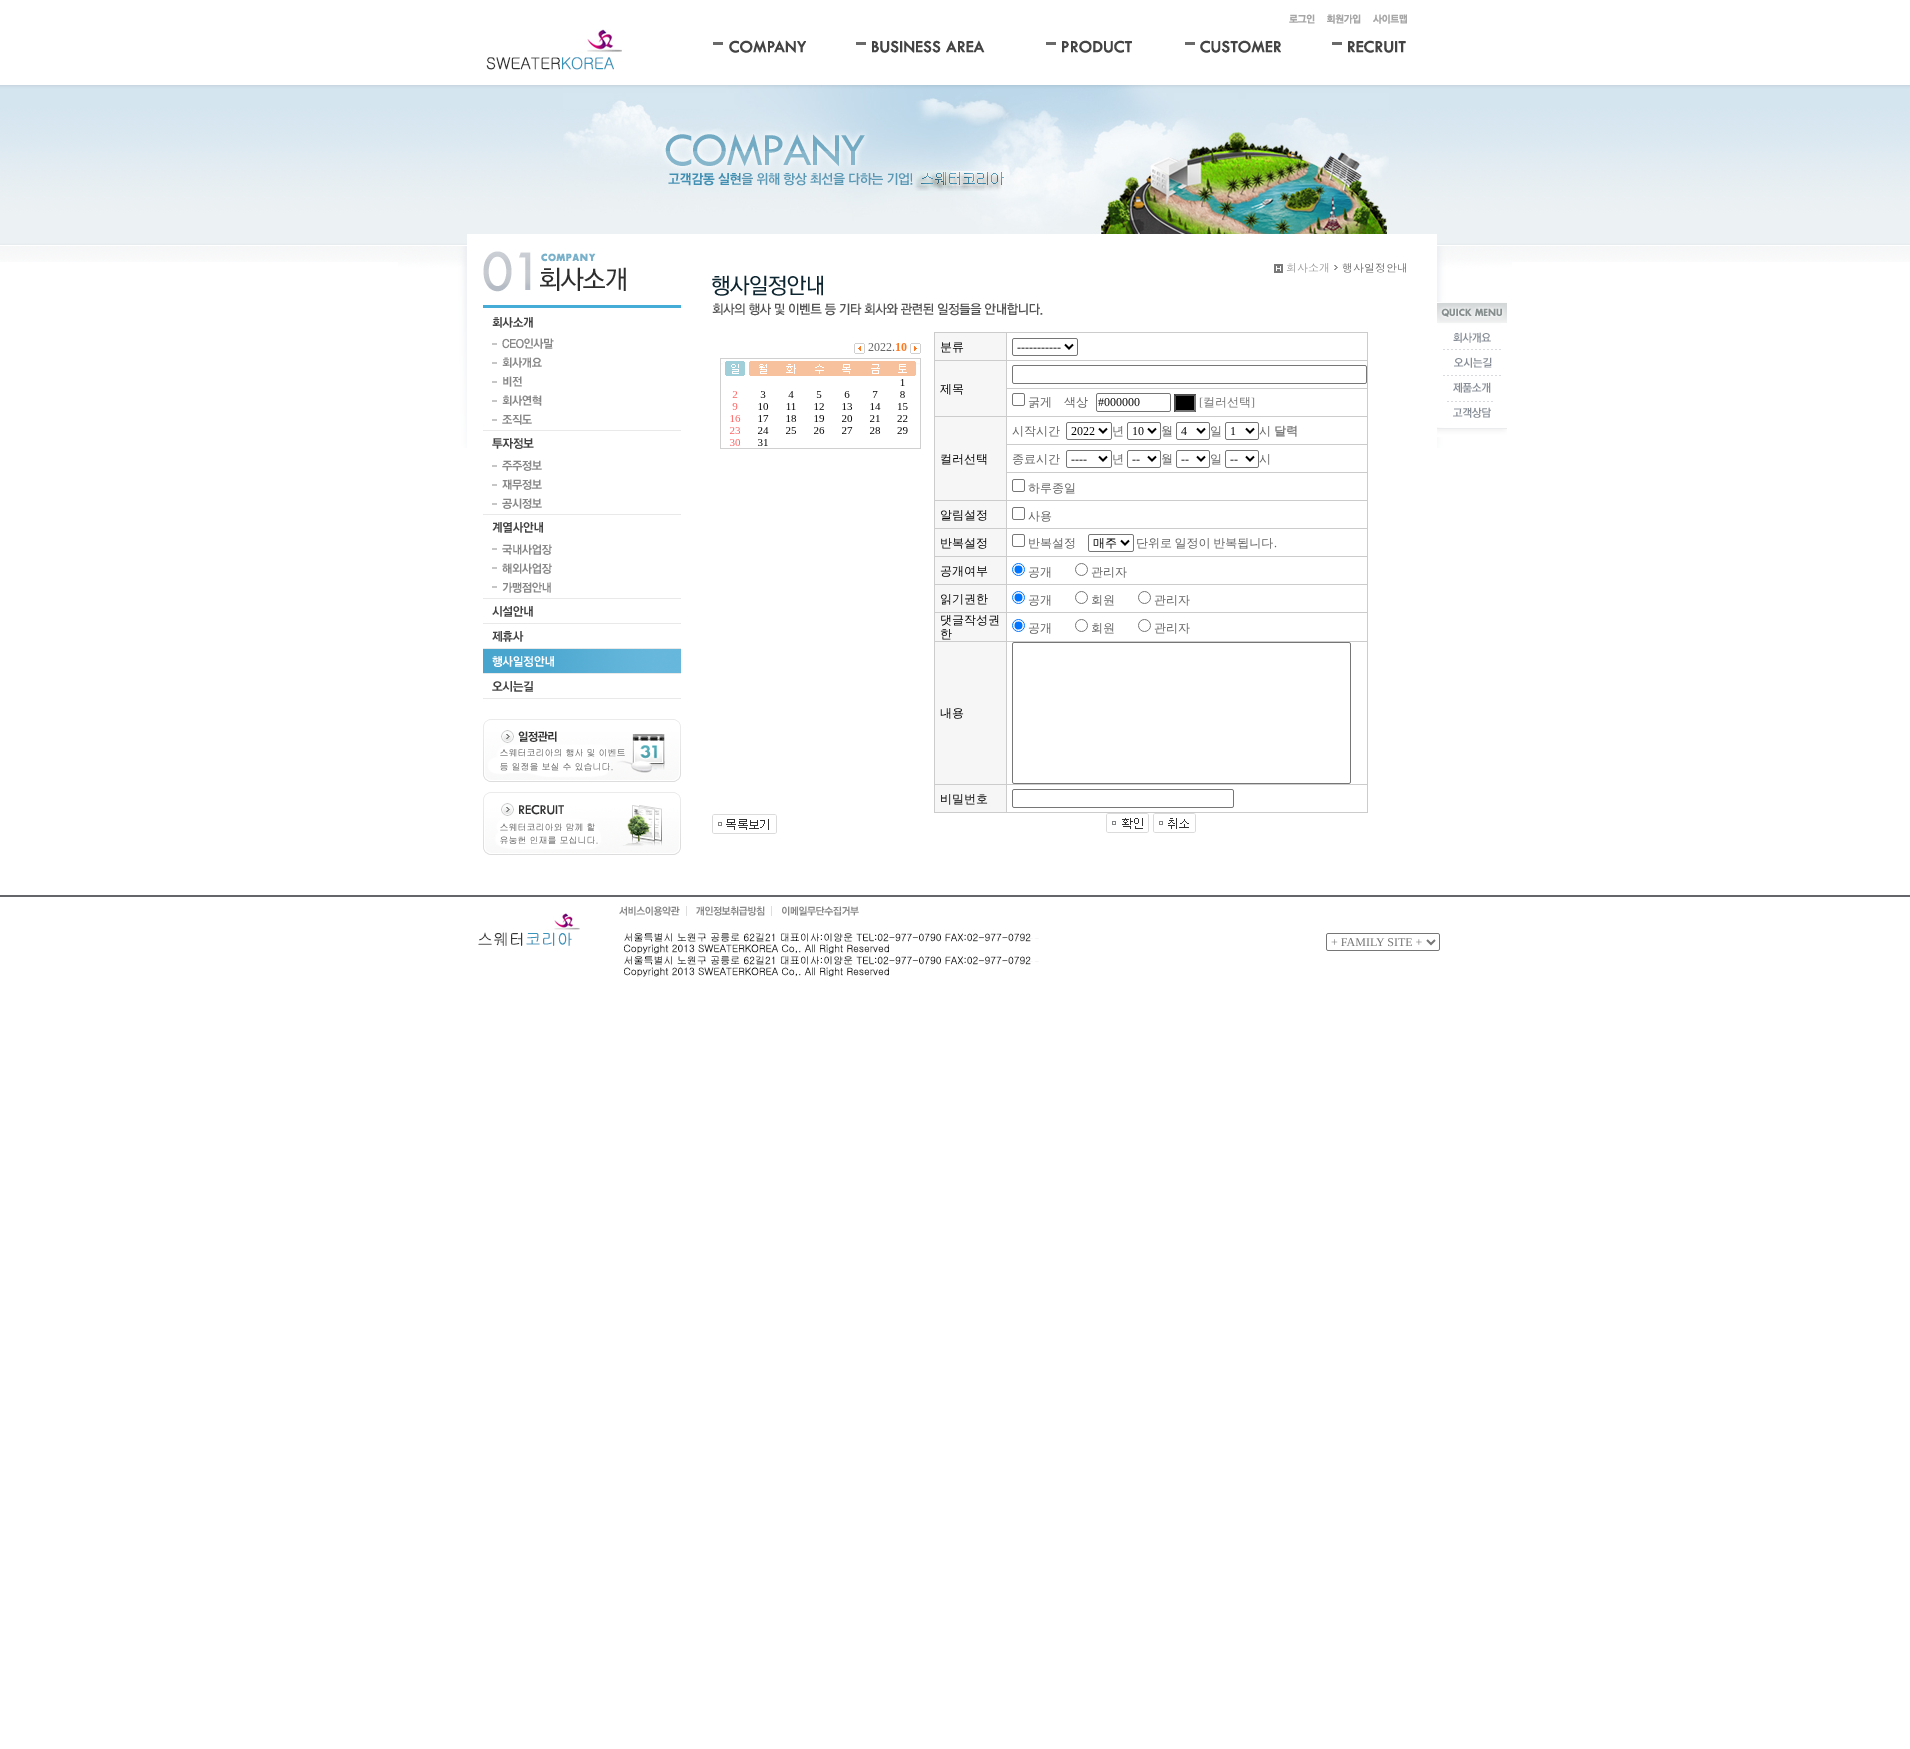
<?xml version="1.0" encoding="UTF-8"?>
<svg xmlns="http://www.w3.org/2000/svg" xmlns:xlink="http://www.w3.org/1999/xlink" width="1910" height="1749">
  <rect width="100%" height="100%" fill="#ffffff" />
  <image x="0" y="85" width="1910" height="177" xlink:href="image1.png" />
  <image x="1289" y="14" width="26" height="10" xlink:href="image2.png" />
  <image x="1327" y="14" width="34" height="10" xlink:href="image3.png" />
  <image x="1373" y="14" width="34" height="10" xlink:href="image4.png" />
  <image x="486" y="29" width="136" height="41" xlink:href="image5.png" />
  <image x="713" y="40" width="93" height="13" xlink:href="image6.png" />
  <image x="856" y="40" width="129" height="13" xlink:href="image7.png" />
  <image x="1046" y="40" width="86" height="13" xlink:href="image8.png" />
  <image x="1185" y="40" width="96" height="13" xlink:href="image9.png" />
  <image x="1332" y="40" width="74" height="13" xlink:href="image10.png" />
  <image x="563" y="85" width="826" height="149" xlink:href="image11.png" />
  <image x="398" y="234" width="1114" height="214" xlink:href="image12.png" />
  <rect x="483" y="305" width="198" height="3" fill="#45abd7" />
  <image x="483" y="251" width="143" height="41" xlink:href="image13.png" />
  <image x="492" y="317" width="41" height="11" xlink:href="image14.png" />
  <image x="492" y="338" width="62" height="11" xlink:href="image15.png" />
  <image x="492" y="357" width="50" height="11" xlink:href="image16.png" />
  <image x="492" y="376" width="30" height="11" xlink:href="image17.png" />
  <image x="492" y="395" width="50" height="11" xlink:href="image18.png" />
  <image x="492" y="414" width="40" height="11" xlink:href="image19.png" />
  <image x="483" y="430" width="198" height="19" xlink:href="image20.png" />
  <image x="492" y="460" width="50" height="11" xlink:href="image21.png" />
  <image x="492" y="479" width="50" height="11" xlink:href="image22.png" />
  <image x="492" y="498" width="50" height="11" xlink:href="image23.png" />
  <image x="483" y="514" width="198" height="19" xlink:href="image24.png" />
  <image x="492" y="544" width="60" height="11" xlink:href="image25.png" />
  <image x="492" y="563" width="60" height="11" xlink:href="image26.png" />
  <image x="492" y="582" width="59" height="11" xlink:href="image27.png" />
  <image x="483" y="598" width="198" height="19" xlink:href="image28.png" />
  <image x="483" y="623" width="198" height="19" xlink:href="image29.png" />
  <image x="483" y="648" width="198" height="25" xlink:href="image30.png" />
  <image x="483" y="673" width="198" height="26" xlink:href="image31.png" />
  <image x="483" y="719" width="198" height="63" xlink:href="image32.png" />
  <image x="483" y="792" width="198" height="63" xlink:href="image33.png" />
  <image x="1274" y="264" width="9" height="9" xlink:href="image34.png" />
  <image x="1334" y="265" width="4" height="5" xlink:href="image35.png" />
  <image x="712" y="275" width="331" height="41" xlink:href="image36.png" />
  <image x="720" y="343" width="201" height="106" xlink:href="image37.png" />
  <rect x="934" y="332" width="434" height="1" fill="#cccccc" />
  <rect x="1367" y="332" width="1" height="481" fill="#cccccc" />
  <rect x="934" y="812" width="434" height="1" fill="#cccccc" />
  <rect x="934" y="332" width="1" height="481" fill="#cccccc" />
  <rect x="935" y="333" width="71" height="27" fill="#f6f6f6" />
  <rect x="1006" y="360" width="362" height="1" fill="#cccccc" />
  <rect x="1006" y="388" width="362" height="1" fill="#cccccc" />
  <rect x="1006" y="416" width="362" height="1" fill="#cccccc" />
  <rect x="1006" y="444" width="362" height="1" fill="#cccccc" />
  <rect x="1006" y="472" width="362" height="1" fill="#cccccc" />
  <rect x="1006" y="500" width="362" height="1" fill="#cccccc" />
  <rect x="1006" y="528" width="362" height="1" fill="#cccccc" />
  <rect x="1006" y="556" width="362" height="1" fill="#cccccc" />
  <rect x="1006" y="584" width="362" height="1" fill="#cccccc" />
  <rect x="1006" y="612" width="362" height="1" fill="#cccccc" />
  <rect x="1006" y="641" width="362" height="1" fill="#cccccc" />
  <rect x="1006" y="784" width="362" height="1" fill="#cccccc" />
  <rect x="1006" y="784" width="1" height="29" fill="#cccccc" />
  <rect x="934" y="784" width="73" height="1" fill="#cccccc" />
  <rect x="1006" y="641" width="1" height="144" fill="#cccccc" />
  <rect x="934" y="641" width="73" height="1" fill="#cccccc" />
  <rect x="1006" y="612" width="1" height="30" fill="#cccccc" />
  <rect x="934" y="612" width="73" height="1" fill="#cccccc" />
  <rect x="1006" y="584" width="1" height="29" fill="#cccccc" />
  <rect x="934" y="584" width="73" height="1" fill="#cccccc" />
  <rect x="1006" y="556" width="1" height="29" fill="#cccccc" />
  <rect x="934" y="556" width="73" height="1" fill="#cccccc" />
  <rect x="1006" y="528" width="1" height="29" fill="#cccccc" />
  <rect x="934" y="528" width="73" height="1" fill="#cccccc" />
  <rect x="1006" y="500" width="1" height="29" fill="#cccccc" />
  <rect x="934" y="500" width="73" height="1" fill="#cccccc" />
  <rect x="1006" y="472" width="1" height="29" fill="#cccccc" />
  <rect x="1006" y="444" width="1" height="29" fill="#cccccc" />
  <rect x="1006" y="416" width="1" height="29" fill="#cccccc" />
  <rect x="934" y="416" width="73" height="1" fill="#cccccc" />
  <rect x="1006" y="388" width="1" height="29" fill="#cccccc" />
  <rect x="1006" y="360" width="1" height="29" fill="#cccccc" />
  <rect x="934" y="360" width="73" height="1" fill="#cccccc" />
  <rect x="1006" y="332" width="1" height="29" fill="#cccccc" />
  <rect x="1012.5" y="338.5" width="65" height="17" rx="1.5" fill="none" stroke="#767676" />
  <path d="M 1065 344.5 l 4 4 l 4 -4" fill="none" stroke="#000000" stroke-width="2" />
  <rect x="935" y="361" width="71" height="55" fill="#f6f6f6" />
  <rect x="1012.5" y="365.5" width="354" height="18" rx="1.5" fill="none" stroke="#767676" />
  <rect x="1012.5" y="393.5" width="12" height="12" rx="1.5" fill="none" stroke="#767676" />
  <rect x="1096.5" y="393.5" width="74" height="18" rx="1.5" fill="none" stroke="#767676" />
  <rect x="1174" y="394" width="22" height="18" fill="#000000" />
  <path d="M 1174 394 h 22 l -2 2 h -18 z" fill="#4f4f4f" />
  <path d="M 1196 394 v 18 l -2 -2 v -14 z" fill="#767676" />
  <path d="M 1196 412 h -22 l 2 -2 h 18 z" fill="#767676" />
  <path d="M 1174 412 v -18 l 2 2 v 14 z" fill="#4f4f4f" />
  <rect x="1066.5" y="422.5" width="45" height="17" rx="1.5" fill="none" stroke="#767676" />
  <path d="M 1099 428.5 l 4 4 l 4 -4" fill="none" stroke="#000000" stroke-width="2" />
  <rect x="1127.5" y="422.5" width="33" height="17" rx="1.5" fill="none" stroke="#767676" />
  <path d="M 1148 428.5 l 4 4 l 4 -4" fill="none" stroke="#000000" stroke-width="2" />
  <rect x="1176.5" y="422.5" width="33" height="17" rx="1.5" fill="none" stroke="#767676" />
  <path d="M 1197 428.5 l 4 4 l 4 -4" fill="none" stroke="#000000" stroke-width="2" />
  <rect x="1225.5" y="422.5" width="33" height="17" rx="1.5" fill="none" stroke="#767676" />
  <path d="M 1246 428.5 l 4 4 l 4 -4" fill="none" stroke="#000000" stroke-width="2" />
  <rect x="935" y="417" width="71" height="83" fill="#f6f6f6" />
  <rect x="1066.5" y="450.5" width="45" height="17" rx="1.5" fill="none" stroke="#767676" />
  <path d="M 1099 456.5 l 4 4 l 4 -4" fill="none" stroke="#000000" stroke-width="2" />
  <rect x="1127.5" y="450.5" width="33" height="17" rx="1.5" fill="none" stroke="#767676" />
  <path d="M 1148 456.5 l 4 4 l 4 -4" fill="none" stroke="#000000" stroke-width="2" />
  <rect x="1176.5" y="450.5" width="33" height="17" rx="1.5" fill="none" stroke="#767676" />
  <path d="M 1197 456.5 l 4 4 l 4 -4" fill="none" stroke="#000000" stroke-width="2" />
  <rect x="1225.5" y="450.5" width="33" height="17" rx="1.5" fill="none" stroke="#767676" />
  <path d="M 1246 456.5 l 4 4 l 4 -4" fill="none" stroke="#000000" stroke-width="2" />
  <rect x="1012.5" y="479.5" width="12" height="12" rx="1.5" fill="none" stroke="#767676" />
  <rect x="935" y="501" width="71" height="27" fill="#f6f6f6" />
  <rect x="1012.5" y="507.5" width="12" height="12" rx="1.5" fill="none" stroke="#767676" />
  <rect x="935" y="529" width="71" height="27" fill="#f6f6f6" />
  <rect x="1012.5" y="534.5" width="12" height="12" rx="1.5" fill="none" stroke="#767676" />
  <rect x="1088.5" y="534.5" width="45" height="17" rx="1.5" fill="none" stroke="#767676" />
  <path d="M 1121 540.5 l 4 4 l 4 -4" fill="none" stroke="#000000" stroke-width="2" />
  <rect x="935" y="557" width="71" height="27" fill="#f6f6f6" />
  <circle cx="1018.5" cy="569.5" r="6" fill="none" stroke="#0075ff" />
  <circle cx="1018.5" cy="569.5" r="4" fill="#0075ff" />
  <circle cx="1081.5" cy="569.5" r="6" fill="none" stroke="#767676" />
  <rect x="935" y="585" width="71" height="27" fill="#f6f6f6" />
  <circle cx="1018.5" cy="597.5" r="6" fill="none" stroke="#0075ff" />
  <circle cx="1018.5" cy="597.5" r="4" fill="#0075ff" />
  <circle cx="1081.5" cy="597.5" r="6" fill="none" stroke="#767676" />
  <circle cx="1144.5" cy="597.5" r="6" fill="none" stroke="#767676" />
  <rect x="935" y="613" width="71" height="28" fill="#f6f6f6" />
  <circle cx="1018.5" cy="625.5" r="6" fill="none" stroke="#0075ff" />
  <circle cx="1018.5" cy="625.5" r="4" fill="#0075ff" />
  <circle cx="1081.5" cy="625.5" r="6" fill="none" stroke="#767676" />
  <circle cx="1144.5" cy="625.5" r="6" fill="none" stroke="#767676" />
  <rect x="935" y="642" width="71" height="142" fill="#f6f6f6" />
  <rect x="1012.5" y="642.5" width="338" height="141" rx="1.5" fill="none" stroke="#767676" />
  <rect x="935" y="785" width="71" height="27" fill="#f6f6f6" />
  <rect x="1012.5" y="789.5" width="221" height="18" rx="1.5" fill="none" stroke="#767676" />
  <image x="712" y="814" width="65" height="20" xlink:href="image38.png" />
  <image x="1106" y="813" width="43" height="20" xlink:href="image39.png" />
  <image x="1153" y="813" width="43" height="20" xlink:href="image40.png" />
  <image x="1437" y="428" width="70" height="9" xlink:href="image41.png" />
  <image x="1437" y="302" width="70" height="21" xlink:href="image42.png" />
  <image x="1437" y="323" width="64" height="27" xlink:href="image43.png" />
  <image x="1437" y="350" width="64" height="26" xlink:href="image44.png" />
  <image x="1437" y="376" width="56" height="26" xlink:href="image45.png" />
  <image x="1437" y="402" width="54" height="25" xlink:href="image46.png" />
  <rect y="895" width="1910" height="2" fill="#64656a" />
  <image x="619" y="906" width="68" height="10" xlink:href="image47.png" />
  <image x="696" y="906" width="76" height="10" xlink:href="image48.png" />
  <image x="782" y="906" width="77" height="10" xlink:href="image49.png" />
  <image x="478" y="913" width="102" height="33" xlink:href="image50.png" />
  <image x="624" y="933" width="415" height="21" xlink:href="image51.png" />
  <rect x="1326.5" y="933.5" width="113" height="17" rx="1.5" fill="none" stroke="#767676" />
  <path d="M 1427 940 l 4 4 l 4 -4" fill="none" stroke="#777777" stroke-width="2" />
  <image x="624" y="956" width="415" height="21" xlink:href="image51.png" />
  <text x="1286" y="272" style="font-family: Dotum; font-size: 11px; fill: #999999">회사소개</text>
  <text x="1342" y="272" style="font-family: Dotum; font-size: 11px; fill: #666666">행사일정안내</text>
  <text x="940" y="351" style="font-family: WenQuanYi Zen Hei; font-size: 12px; font-weight: 500; fill: #000000">분류</text>
  <text x="1017" y="351" style="font-family: Liberation Serif; font-size: 12px; fill: #000000">-----------</text>
  <text x="940" y="393" style="font-family: WenQuanYi Zen Hei; font-size: 12px; font-weight: 500; fill: #000000">제목</text>
  <text x="1028" y="406" style="font-family: WenQuanYi Zen Hei; font-size: 12px; font-weight: 500; fill: #666666">굵게</text>
  <text x="1064" y="406" style="font-family: WenQuanYi Zen Hei; font-size: 12px; font-weight: 500; fill: #666666">색상</text>
  <text x="1098" y="406" style="font-family: Liberation Serif; font-size: 12px; fill: #000000">#000000</text>
  <text x="1199" y="406" style="font-family: Liberation Serif; font-size: 12px; fill: #787878">[</text>
  <text x="1203" y="406" style="font-family: WenQuanYi Zen Hei; font-size: 12px; font-weight: 500; fill: #787878">컬러선택</text>
  <text x="1251" y="406" style="font-family: Liberation Serif; font-size: 12px; fill: #787878">]</text>
  <text x="1012" y="435" style="font-family: WenQuanYi Zen Hei; font-size: 12px; font-weight: 500; fill: #666666">시작시간</text>
  <text x="1071" y="435" style="font-family: Liberation Serif; font-size: 12px; fill: #000000">2022</text>
  <text x="1112" y="435" style="font-family: WenQuanYi Zen Hei; font-size: 12px; font-weight: 500; fill: #666666">년</text>
  <text x="1132" y="435" style="font-family: Liberation Serif; font-size: 12px; fill: #000000">10</text>
  <text x="1161" y="435" style="font-family: WenQuanYi Zen Hei; font-size: 12px; font-weight: 500; fill: #666666">월</text>
  <text x="1181" y="435" style="font-family: Liberation Serif; font-size: 12px; fill: #000000">4</text>
  <text x="1210" y="435" style="font-family: WenQuanYi Zen Hei; font-size: 12px; font-weight: 500; fill: #666666">일</text>
  <text x="1230" y="435" style="font-family: Liberation Serif; font-size: 12px; fill: #000000">1</text>
  <text x="1259" y="435" style="font-family: WenQuanYi Zen Hei; font-size: 12px; font-weight: 500; fill: #666666">시</text>
  <text x="1274" y="435" style="font-family: WenQuanYi Zen Hei; font-size: 12px; font-weight: bold; fill: #787878">달력</text>
  <text x="940" y="463" style="font-family: WenQuanYi Zen Hei; font-size: 12px; font-weight: 500; fill: #000000">컬러선택</text>
  <text x="1012" y="463" style="font-family: WenQuanYi Zen Hei; font-size: 12px; font-weight: 500; fill: #666666">종료시간</text>
  <text x="1071" y="463" style="font-family: Liberation Serif; font-size: 12px; fill: #000000">----</text>
  <text x="1112" y="463" style="font-family: WenQuanYi Zen Hei; font-size: 12px; font-weight: 500; fill: #666666">년</text>
  <text x="1132" y="463" style="font-family: Liberation Serif; font-size: 12px; fill: #000000">--</text>
  <text x="1161" y="463" style="font-family: WenQuanYi Zen Hei; font-size: 12px; font-weight: 500; fill: #666666">월</text>
  <text x="1181" y="463" style="font-family: Liberation Serif; font-size: 12px; fill: #000000">--</text>
  <text x="1210" y="463" style="font-family: WenQuanYi Zen Hei; font-size: 12px; font-weight: 500; fill: #666666">일</text>
  <text x="1230" y="463" style="font-family: Liberation Serif; font-size: 12px; fill: #000000">--</text>
  <text x="1259" y="463" style="font-family: WenQuanYi Zen Hei; font-size: 12px; font-weight: 500; fill: #666666">시</text>
  <text x="1028" y="492" style="font-family: WenQuanYi Zen Hei; font-size: 12px; font-weight: 500; fill: #666666">하루종일</text>
  <text x="940" y="519" style="font-family: WenQuanYi Zen Hei; font-size: 12px; font-weight: 500; fill: #000000">알림설정</text>
  <text x="1028" y="520" style="font-family: WenQuanYi Zen Hei; font-size: 12px; font-weight: 500; fill: #666666">사용</text>
  <text x="940" y="547" style="font-family: WenQuanYi Zen Hei; font-size: 12px; font-weight: 500; fill: #000000">반복설정</text>
  <text x="1028" y="547" style="font-family: WenQuanYi Zen Hei; font-size: 12px; font-weight: 500; fill: #666666">반복설정</text>
  <text x="1093" y="547" style="font-family: WenQuanYi Zen Hei; font-size: 12px; font-weight: 500; fill: #000000">매주</text>
  <text x="1136" y="547" word-spacing="-1" style="font-family: WenQuanYi Zen Hei; font-size: 12px; font-weight: 500; fill: #666666">단위로 일정이 반복됩니다</text>
  <text x="1274" y="547" style="font-family: Liberation Serif; font-size: 12px; fill: #666666">.</text>
  <text x="940" y="575" style="font-family: WenQuanYi Zen Hei; font-size: 12px; font-weight: 500; fill: #000000">공개여부</text>
  <text x="1028" y="576" style="font-family: WenQuanYi Zen Hei; font-size: 12px; font-weight: 500; fill: #666666">공개</text>
  <text x="1091" y="576" style="font-family: WenQuanYi Zen Hei; font-size: 12px; font-weight: 500; fill: #666666">관리자</text>
  <text x="940" y="603" style="font-family: WenQuanYi Zen Hei; font-size: 12px; font-weight: 500; fill: #000000">읽기권한</text>
  <text x="1028" y="604" style="font-family: WenQuanYi Zen Hei; font-size: 12px; font-weight: 500; fill: #666666">공개</text>
  <text x="1091" y="604" style="font-family: WenQuanYi Zen Hei; font-size: 12px; font-weight: 500; fill: #666666">회원</text>
  <text x="1154" y="604" style="font-family: WenQuanYi Zen Hei; font-size: 12px; font-weight: 500; fill: #666666">관리자</text>
  <text x="940" y="624" style="font-family: WenQuanYi Zen Hei; font-size: 12px; font-weight: 500; fill: #000000">댓글작성권</text>
  <text x="940" y="638" style="font-family: WenQuanYi Zen Hei; font-size: 12px; font-weight: 500; fill: #000000">한</text>
  <text x="1028" y="632" style="font-family: WenQuanYi Zen Hei; font-size: 12px; font-weight: 500; fill: #666666">공개</text>
  <text x="1091" y="632" style="font-family: WenQuanYi Zen Hei; font-size: 12px; font-weight: 500; fill: #666666">회원</text>
  <text x="1154" y="632" style="font-family: WenQuanYi Zen Hei; font-size: 12px; font-weight: 500; fill: #666666">관리자</text>
  <text x="940" y="717" style="font-family: WenQuanYi Zen Hei; font-size: 12px; font-weight: 500; fill: #000000">내용</text>
  <text x="940" y="803" style="font-family: WenQuanYi Zen Hei; font-size: 12px; font-weight: 500; fill: #000000">비밀번호</text>
  <text x="1331" y="946" style="font-family: Liberation Serif; font-size: 12px; fill: #787878">+ FAMILY SITE +</text>
</svg>
